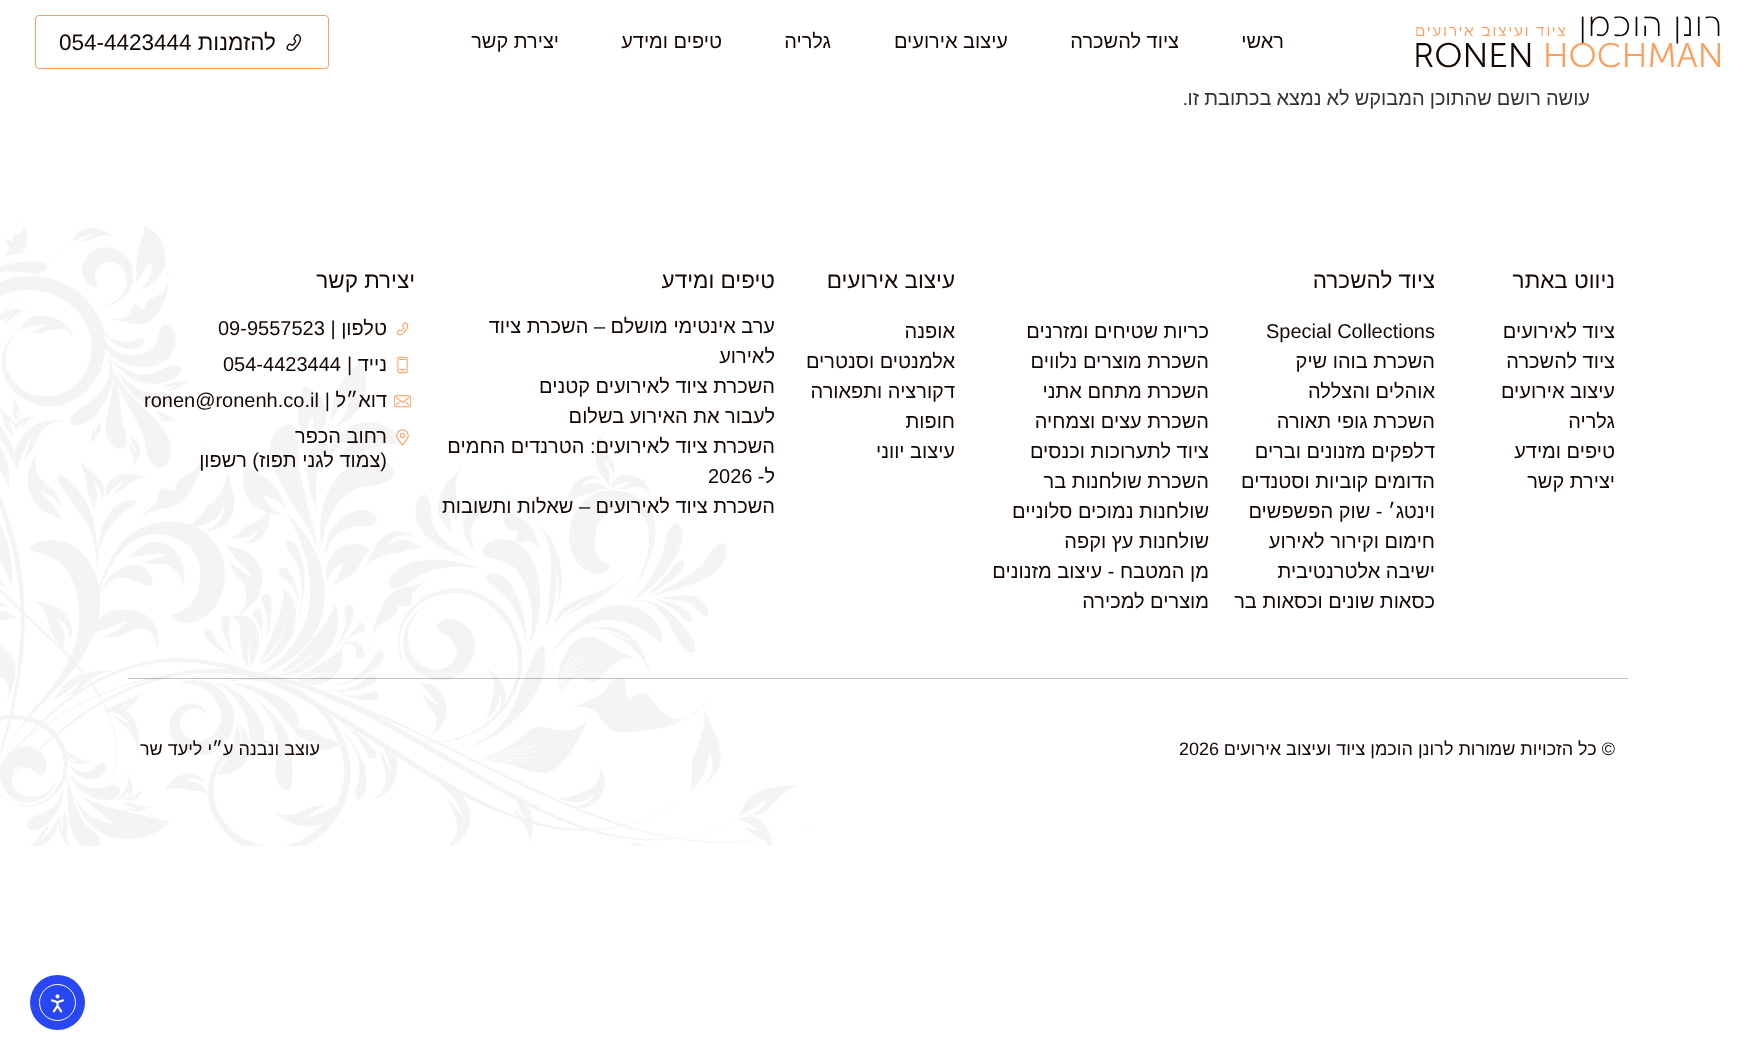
<?xml version="1.0" encoding="UTF-8"?>
<svg xmlns="http://www.w3.org/2000/svg" xmlns:xlink="http://www.w3.org/1999/xlink" width="1754" height="1059">
  <rect width="100%" height="100%" fill="#ffffff" />
  <image x="1416" y="16" width="304" height="52" xlink:href="image1.png" />
  <rect x="35.5" y="15.5" width="293" height="53" rx="3.5" fill="none" stroke="#ff9d5c" />
  <image x="286" y="34" width="16" height="17" xlink:href="image2.png" />
  <image x="0" y="220" width="818" height="626" xlink:href="image3.png" />
  <image x="396" y="322" width="13" height="14" xlink:href="image4.png" />
  <image x="397" y="356" width="11" height="18" xlink:href="image5.png" />
  <image x="394" y="395" width="17" height="13" xlink:href="image6.png" />
  <image x="396" y="429" width="13" height="17" xlink:href="image7.png" />
  <rect x="128" y="678" width="1500" height="1" fill="#140800" fill-opacity="0.26" />
  <circle cx="57.5" cy="1002.5" r="27.5" fill="#2847f3" />
  <circle cx="57.5" cy="1002.5" r="18" fill="none" stroke="#ffffff" />
  <image x="50" y="994" width="14" height="19" xlink:href="image8.png" />
  <text x="1284" y="48" style="font-family: Liberation Sans; font-size: 20px; direction: rtl; fill: #140800">ראשי</text>
  <text x="1179" y="48" style="font-family: Liberation Sans; font-size: 20px; direction: rtl; fill: #140800">ציוד להשכרה</text>
  <text x="1008" y="48" style="font-family: Liberation Sans; font-size: 20px; direction: rtl; fill: #140800">עיצוב אירועים</text>
  <text x="831" y="48" style="font-family: Liberation Sans; font-size: 20px; direction: rtl; fill: #140800">גלריה</text>
  <text x="722" y="48" style="font-family: Liberation Sans; font-size: 20px; direction: rtl; fill: #140800">טיפים ומידע</text>
  <text x="559" y="48" style="font-family: Liberation Sans; font-size: 20px; direction: rtl; fill: #140800">יצירת קשר</text>
  <text x="276" y="50" style="font-family: Liberation Sans; font-size: 22.5px; direction: rtl; fill: #140800">להזמנות</text>
  <text x="59" y="50" style="font-family: Liberation Sans; font-size: 22.5px; fill: #140800">054-4423444</text>
  <text x="1590" y="105" word-spacing="-0.5" style="font-family: Liberation Sans; font-size: 20px; direction: rtl; fill: #333333">עושה רושם שהתוכן המבוקש לא נמצא בכתובת זו</text>
  <text x="1188" y="105" style="font-family: Roboto; font-size: 20px; direction: rtl; fill: #333333">.</text>
  <text x="1615" y="288" style="font-family: Liberation Sans; font-size: 22.5px; direction: rtl; fill: #140800">ניווט באתר</text>
  <text x="1615" y="338" style="font-family: Liberation Sans; font-size: 20px; direction: rtl; fill: #140800">ציוד לאירועים</text>
  <text x="1615" y="368" style="font-family: Liberation Sans; font-size: 20px; direction: rtl; fill: #140800">ציוד להשכרה</text>
  <text x="1615" y="398" style="font-family: Liberation Sans; font-size: 20px; direction: rtl; fill: #140800">עיצוב אירועים</text>
  <text x="1615" y="428" style="font-family: Liberation Sans; font-size: 20px; direction: rtl; fill: #140800">גלריה</text>
  <text x="1615" y="458" style="font-family: Liberation Sans; font-size: 20px; direction: rtl; fill: #140800">טיפים ומידע</text>
  <text x="1615" y="488" style="font-family: Liberation Sans; font-size: 20px; direction: rtl; fill: #140800">יצירת קשר</text>
  <text x="1435" y="288" style="font-family: Liberation Sans; font-size: 22.5px; direction: rtl; fill: #140800">ציוד להשכרה</text>
  <text x="1266" y="338" style="font-family: Liberation Sans; font-size: 20px; fill: #140800">Special Collections</text>
  <text x="1435" y="368" style="font-family: Liberation Sans; font-size: 20px; direction: rtl; fill: #140800">השכרת בוהו שיק</text>
  <text x="1435" y="398" style="font-family: Liberation Sans; font-size: 20px; direction: rtl; fill: #140800">אוהלים והצללה</text>
  <text x="1435" y="428" style="font-family: Liberation Sans; font-size: 20px; direction: rtl; fill: #140800">השכרת גופי תאורה</text>
  <text x="1435" y="458" style="font-family: Liberation Sans; font-size: 20px; direction: rtl; fill: #140800">דלפקים מזנונים וברים</text>
  <text x="1435" y="488" style="font-family: Liberation Sans; font-size: 20px; direction: rtl; fill: #140800">הדומים קוביות וסטנדים</text>
  <text x="1435" y="518" style="font-family: Liberation Sans; font-size: 20px; direction: rtl; fill: #140800">וינטג׳ - שוק הפשפשים</text>
  <text x="1435" y="548" style="font-family: Liberation Sans; font-size: 20px; direction: rtl; fill: #140800">חימום וקירור לאירוע</text>
  <text x="1435" y="578" style="font-family: Liberation Sans; font-size: 20px; direction: rtl; fill: #140800">ישיבה אלטרנטיבית</text>
  <text x="1435" y="608" style="font-family: Liberation Sans; font-size: 20px; direction: rtl; fill: #140800">כסאות שונים וכסאות בר</text>
  <text x="1209" y="338" style="font-family: Liberation Sans; font-size: 20px; direction: rtl; fill: #140800">כריות שטיחים ומזרנים</text>
  <text x="1209" y="368" style="font-family: Liberation Sans; font-size: 20px; direction: rtl; fill: #140800">השכרת מוצרים נלווים</text>
  <text x="1209" y="398" style="font-family: Liberation Sans; font-size: 20px; direction: rtl; fill: #140800">השכרת מתחם אתני</text>
  <text x="1209" y="428" style="font-family: Liberation Sans; font-size: 20px; direction: rtl; fill: #140800">השכרת עצים וצמחיה</text>
  <text x="1209" y="458" style="font-family: Liberation Sans; font-size: 20px; direction: rtl; fill: #140800">ציוד לתערוכות וכנסים</text>
  <text x="1209" y="488" style="font-family: Liberation Sans; font-size: 20px; direction: rtl; fill: #140800">השכרת שולחנות בר</text>
  <text x="1209" y="518" style="font-family: Liberation Sans; font-size: 20px; direction: rtl; fill: #140800">שולחנות נמוכים סלוניים</text>
  <text x="1209" y="548" style="font-family: Liberation Sans; font-size: 20px; direction: rtl; fill: #140800">שולחנות עץ וקפה</text>
  <text x="1209" y="578" style="font-family: Liberation Sans; font-size: 20px; direction: rtl; fill: #140800">מן המטבח - עיצוב מזנונים</text>
  <text x="1209" y="608" style="font-family: Liberation Sans; font-size: 20px; direction: rtl; fill: #140800">מוצרים למכירה</text>
  <text x="955" y="288" style="font-family: Liberation Sans; font-size: 22.5px; direction: rtl; fill: #140800">עיצוב אירועים</text>
  <text x="955" y="338" style="font-family: Liberation Sans; font-size: 20px; direction: rtl; fill: #140800">אופנה</text>
  <text x="955" y="368" style="font-family: Liberation Sans; font-size: 20px; direction: rtl; fill: #140800">אלמנטים וסנטרים</text>
  <text x="955" y="398" style="font-family: Liberation Sans; font-size: 20px; direction: rtl; fill: #140800">דקורציה ותפאורה</text>
  <text x="955" y="428" style="font-family: Liberation Sans; font-size: 20px; direction: rtl; fill: #140800">חופות</text>
  <text x="955" y="458" style="font-family: Liberation Sans; font-size: 20px; direction: rtl; fill: #140800">עיצוב יווני</text>
  <text x="775" y="288" style="font-family: Liberation Sans; font-size: 22.5px; direction: rtl; fill: #140800">טיפים ומידע</text>
  <text x="775" y="333" style="font-family: Liberation Sans; font-size: 20px; direction: rtl; fill: #140800">ערב אינטימי מושלם – השכרת ציוד</text>
  <text x="775" y="363" style="font-family: Liberation Sans; font-size: 20px; direction: rtl; fill: #140800">לאירוע</text>
  <text x="775" y="393" style="font-family: Liberation Sans; font-size: 20px; direction: rtl; fill: #140800">השכרת ציוד לאירועים קטנים</text>
  <text x="775" y="423" style="font-family: Liberation Sans; font-size: 20px; direction: rtl; fill: #140800">לעבור את האירוע בשלום</text>
  <text x="775" y="453" style="font-family: Liberation Sans; font-size: 20px; direction: rtl; fill: #140800">השכרת ציוד לאירועים: הטרנדים החמים</text>
  <text x="775" y="483" style="font-family: Liberation Sans; font-size: 20px; direction: rtl; fill: #140800">ל-</text>
  <text x="708" y="483" style="font-family: Liberation Sans; font-size: 20px; fill: #140800">2026</text>
  <text x="775" y="513" style="font-family: Liberation Sans; font-size: 20px; direction: rtl; fill: #140800">השכרת ציוד לאירועים – שאלות ותשובות</text>
  <text x="415" y="288" style="font-family: Liberation Sans; font-size: 22.5px; direction: rtl; fill: #140800">יצירת קשר</text>
  <text x="387" y="335" style="font-family: Liberation Sans; font-size: 20px; direction: rtl; fill: #140800">טלפון |</text>
  <text x="218" y="335" style="font-family: Liberation Sans; font-size: 20px; fill: #140800">09-9557523</text>
  <text x="387" y="371" style="font-family: Liberation Sans; font-size: 20px; direction: rtl; fill: #140800">נייד |</text>
  <text x="223" y="371" style="font-family: Liberation Sans; font-size: 20px; fill: #140800">054-4423444</text>
  <text x="387" y="407" style="font-family: Liberation Sans; font-size: 20px; direction: rtl; fill: #140800">דוא״ל |</text>
  <text x="144" y="407" style="font-family: Liberation Sans; font-size: 20px; fill: #140800">ronen@ronenh.co.il</text>
  <text x="387" y="443" style="font-family: Liberation Sans; font-size: 20px; direction: rtl; fill: #140800">רחוב הכפר</text>
  <text x="387" y="467" style="font-family: Liberation Sans; font-size: 20px; direction: rtl; fill: #140800">(צמוד לגני תפוז)</text>
  <text x="247" y="467" style="font-family: Liberation Sans; font-size: 20px; direction: rtl; fill: #140800">רשפון</text>
  <text x="1615" y="755" style="font-family: Liberation Sans; font-size: 18px; direction: rtl; fill: #140800">© כל הזכויות שמורות לרונן הוכמן ציוד ועיצוב אירועים</text>
  <text x="1179" y="755" style="font-family: Liberation Sans; font-size: 18px; fill: #140800">2026</text>
  <text x="320" y="755" style="font-family: Liberation Sans; font-size: 18px; direction: rtl; fill: #140800">עוצב ונבנה ע״י ליעד שר</text>
</svg>
